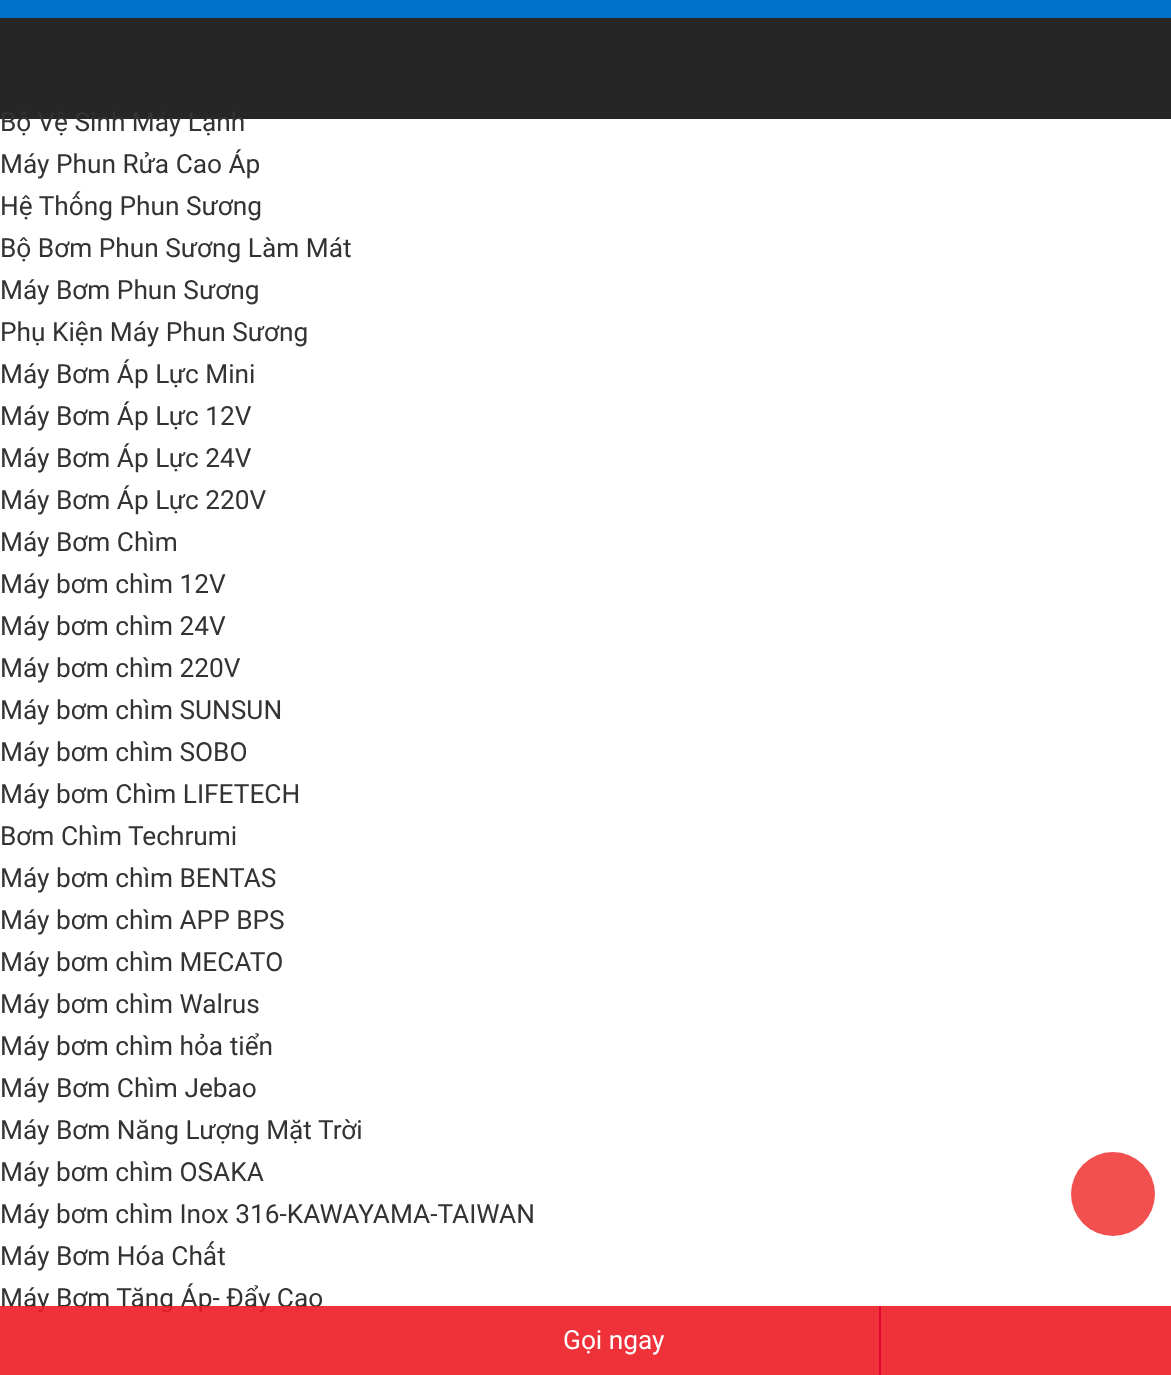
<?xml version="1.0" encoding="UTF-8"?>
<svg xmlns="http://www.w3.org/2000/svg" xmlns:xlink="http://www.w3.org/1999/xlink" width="1171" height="1375">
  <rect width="100%" height="100%" fill="#0070c9" />
  <rect y="18" width="1171" height="101" fill="#262626" />
  <rect y="119" width="1171" height="1256" fill="#ffffff" />
  <circle cx="1113" cy="1194" r="42" fill="#f24f4f" />
  <text x="0" y="131" style="font-family: Roboto; font-size: 26.25px; fill: #333333">Bộ Vệ Sinh Máy Lạnh</text>
  <text x="0" y="173" style="font-family: Roboto; font-size: 26.25px; fill: #333333">Máy Phun Rửa Cao Áp</text>
  <text x="0" y="215" style="font-family: Roboto; font-size: 26.25px; fill: #333333">Hệ Thống Phun Sương</text>
  <text x="0" y="257" style="font-family: Roboto; font-size: 26.25px; fill: #333333">Bộ Bơm Phun Sương Làm Mát</text>
  <text x="0" y="299" style="font-family: Roboto; font-size: 26.25px; fill: #333333">Máy Bơm Phun Sương</text>
  <text x="0" y="341" style="font-family: Roboto; font-size: 26.25px; fill: #333333">Phụ Kiện Máy Phun Sương</text>
  <text x="0" y="383" style="font-family: Roboto; font-size: 26.25px; fill: #333333">Máy Bơm Áp Lực Mini</text>
  <text x="0" y="425" style="font-family: Roboto; font-size: 26.25px; fill: #333333">Máy Bơm Áp Lực 12V</text>
  <text x="0" y="467" style="font-family: Roboto; font-size: 26.25px; fill: #333333">Máy Bơm Áp Lực 24V</text>
  <text x="0" y="509" style="font-family: Roboto; font-size: 26.25px; fill: #333333">Máy Bơm Áp Lực 220V</text>
  <text x="0" y="551" style="font-family: Roboto; font-size: 26.25px; fill: #333333">Máy Bơm Chìm</text>
  <text x="0" y="593" style="font-family: Roboto; font-size: 26.25px; fill: #333333">Máy bơm chìm 12V</text>
  <text x="0" y="635" style="font-family: Roboto; font-size: 26.25px; fill: #333333">Máy bơm chìm 24V</text>
  <text x="0" y="677" style="font-family: Roboto; font-size: 26.25px; fill: #333333">Máy bơm chìm 220V</text>
  <text x="0" y="719" style="font-family: Roboto; font-size: 26.25px; fill: #333333">Máy bơm chìm SUNSUN</text>
  <text x="0" y="761" style="font-family: Roboto; font-size: 26.25px; fill: #333333">Máy bơm chìm SOBO</text>
  <text x="0" y="803" style="font-family: Roboto; font-size: 26.25px; fill: #333333">Máy bơm Chìm LIFETECH</text>
  <text x="0" y="845" style="font-family: Roboto; font-size: 26.25px; fill: #333333">Bơm Chìm Techrumi</text>
  <text x="0" y="887" style="font-family: Roboto; font-size: 26.25px; fill: #333333">Máy bơm chìm BENTAS</text>
  <text x="0" y="929" style="font-family: Roboto; font-size: 26.25px; fill: #333333">Máy bơm chìm APP BPS</text>
  <text x="0" y="971" style="font-family: Roboto; font-size: 26.25px; fill: #333333">Máy bơm chìm MECATO</text>
  <text x="0" y="1013" style="font-family: Roboto; font-size: 26.25px; fill: #333333">Máy bơm chìm Walrus</text>
  <text x="0" y="1055" style="font-family: Roboto; font-size: 26.25px; fill: #333333">Máy bơm chìm hỏa tiển</text>
  <text x="0" y="1097" style="font-family: Roboto; font-size: 26.25px; fill: #333333">Máy Bơm Chìm Jebao</text>
  <text x="0" y="1139" style="font-family: Roboto; font-size: 26.25px; fill: #333333">Máy Bơm Năng Lượng Mặt Trời</text>
  <text x="0" y="1181" style="font-family: Roboto; font-size: 26.25px; fill: #333333">Máy bơm chìm OSAKA</text>
  <text x="0" y="1223" style="font-family: Roboto; font-size: 26.25px; fill: #333333">Máy bơm chìm Inox 316-KAWAYAMA-TAIWAN</text>
  <text x="0" y="1265" style="font-family: Roboto; font-size: 26.25px; fill: #333333">Máy Bơm Hóa Chất</text>
  <text x="0" y="1307" style="font-family: Roboto; font-size: 26.25px; fill: #333333">Máy Bơm Tăng Áp- Đẩy Cao</text>
  <rect y="1306" width="1171" height="69" fill="#ed1c24" fill-opacity="0.9" />
  <rect x="879" y="1306" width="2" height="69" fill="#e10531" />
  <text x="563" y="1349" style="font-family: Roboto; font-size: 26.25px; fill: #ffffff">Gọi ngay</text>
</svg>
